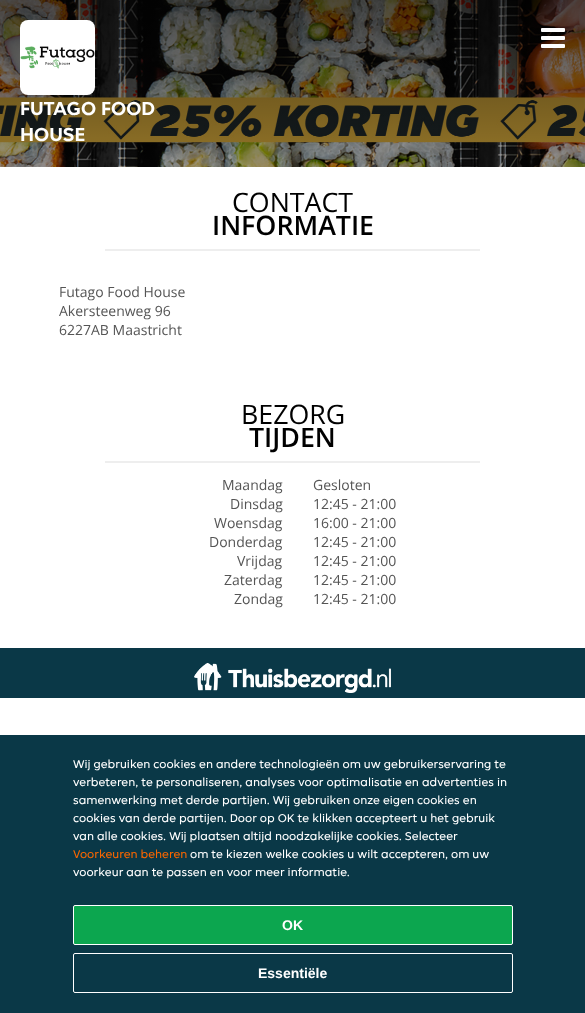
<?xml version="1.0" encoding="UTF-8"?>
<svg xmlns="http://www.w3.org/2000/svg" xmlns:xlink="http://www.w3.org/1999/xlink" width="585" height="1013">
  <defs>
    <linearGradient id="g1" gradientUnits="userSpaceOnUse" x1="292" y1="0" x2="293" y2="500"><stop offset="0" stop-color="#000000" stop-opacity="0.7" /><stop offset="0.33" stop-color="#000000" stop-opacity="0.4" /><stop offset="0.67" stop-color="#000000" stop-opacity="0.2" /><stop offset="1" stop-color="#000000" stop-opacity="0" /></linearGradient>
  </defs>
  <rect width="100%" height="100%" fill="#ffffff" />
  <image x="0" y="0" width="585" height="167" xlink:href="image1.png" />
  <rect width="585" height="167" fill="url(#g1)" />
  <image x="541" y="28" width="24" height="20" xlink:href="image2.png" />
  <rect x="20" y="20" width="75" height="75" rx="8" fill="#ffffff" />
  <image x="20" y="46" width="75" height="23" xlink:href="image3.png" />
  <rect x="105" y="249" width="375" height="2" fill="#eeeeee" />
  <rect x="105" y="461" width="375" height="2" fill="#eeeeee" />
  <rect y="648" width="585" height="50" fill="#0a3847" />
  <image x="194" y="663" width="197" height="30" xlink:href="image4.png" />
  <rect y="735" width="585" height="278" fill="#0a3847" />
  <rect x="73.5" y="905.5" width="439" height="39" rx="1.5" fill="#0ca64f" stroke="#ffffff" />
  <rect x="73.5" y="953.5" width="439" height="39" rx="1.5" fill="none" stroke="#ffffff" />
  <text x="20" y="115" style="font-family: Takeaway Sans; font-size: 20px; font-weight: bold; fill: #ffffff">FUTAGO FOOD</text>
  <text x="20" y="141" style="font-family: Takeaway Sans; font-size: 20px; font-weight: bold; fill: #ffffff">HOUSE</text>
  <text x="232" y="212" style="font-family: Open Sans; font-size: 26.75px; fill: #000000">CONTACT</text>
  <text x="212" y="235" style="font-family: Open Sans; font-size: 26.75px; font-weight: 600; fill: #000000">INFORMATIE</text>
  <text x="59" y="297" style="font-family: Open Sans; font-size: 14px; fill: #555555">Futago Food House</text>
  <text x="59" y="316" style="font-family: Open Sans; font-size: 14px; fill: #555555">Akersteenweg 96</text>
  <text x="59" y="335" style="font-family: Open Sans; font-size: 14px; fill: #555555">6227AB Maastricht</text>
  <text x="241" y="424" style="font-family: Open Sans; font-size: 26.75px; fill: #000000">BEZORG</text>
  <text x="249" y="447" style="font-family: Open Sans; font-size: 26.75px; font-weight: 600; fill: #000000">TIJDEN</text>
  <text x="222" y="490" style="font-family: Open Sans; font-size: 14px; fill: #555555">Maandag</text>
  <text x="313" y="490" style="font-family: Open Sans; font-size: 14px; fill: #555555">Gesloten</text>
  <text x="230" y="509" style="font-family: Open Sans; font-size: 14px; fill: #555555">Dinsdag</text>
  <text x="313" y="509" style="font-family: Open Sans; font-size: 14px; fill: #555555">12:45 - 21:00</text>
  <text x="214" y="528" style="font-family: Open Sans; font-size: 14px; fill: #555555">Woensdag</text>
  <text x="313" y="528" style="font-family: Open Sans; font-size: 14px; fill: #555555">16:00 - 21:00</text>
  <text x="209" y="547" style="font-family: Open Sans; font-size: 14px; fill: #555555">Donderdag</text>
  <text x="313" y="547" style="font-family: Open Sans; font-size: 14px; fill: #555555">12:45 - 21:00</text>
  <text x="237" y="566" style="font-family: Open Sans; font-size: 14px; fill: #555555">Vrijdag</text>
  <text x="313" y="566" style="font-family: Open Sans; font-size: 14px; fill: #555555">12:45 - 21:00</text>
  <text x="224" y="585" style="font-family: Open Sans; font-size: 14px; fill: #555555">Zaterdag</text>
  <text x="313" y="585" style="font-family: Open Sans; font-size: 14px; fill: #555555">12:45 - 21:00</text>
  <text x="234" y="604" style="font-family: Open Sans; font-size: 14px; fill: #555555">Zondag</text>
  <text x="313" y="604" style="font-family: Open Sans; font-size: 14px; fill: #555555">12:45 - 21:00</text>
  <text x="73" y="768" style="font-family: Takeaway Sans; font-size: 12px; fill: #ffffff">Wij gebruiken cookies en andere technologieën om uw gebruikerservaring te</text>
  <text x="73" y="786" style="font-family: Takeaway Sans; font-size: 12px; fill: #ffffff">verbeteren, te personaliseren, analyses voor optimalisatie en advertenties in</text>
  <text x="73" y="804" style="font-family: Takeaway Sans; font-size: 12px; fill: #ffffff">samenwerking met derde partijen. Wij gebruiken onze eigen cookies en</text>
  <text x="73" y="822" style="font-family: Takeaway Sans; font-size: 12px; fill: #ffffff">cookies van derde partijen. Door op OK te klikken accepteert u het gebruik</text>
  <text x="73" y="840" style="font-family: Takeaway Sans; font-size: 12px; fill: #ffffff">van alle cookies. Wij plaatsen altijd noodzakelijke cookies. Selecteer</text>
  <text x="73" y="858" style="font-family: Takeaway Sans; font-size: 12px; fill: #f86600">Voorkeuren beheren</text>
  <text x="190" y="858" style="font-family: Takeaway Sans; font-size: 12px; fill: #ffffff">om te kiezen welke cookies u wilt accepteren, om uw</text>
  <text x="73" y="876" style="font-family: Takeaway Sans; font-size: 12px; fill: #ffffff">voorkeur aan te passen en voor meer informatie.</text>
  <text x="282" y="930" style="font-family: Liberation Sans; font-size: 14px; font-weight: bold; fill: #ffffff">OK</text>
  <text x="258" y="978" style="font-family: Liberation Sans; font-size: 14px; font-weight: bold; fill: #ffffff">Essentiële</text>
</svg>
